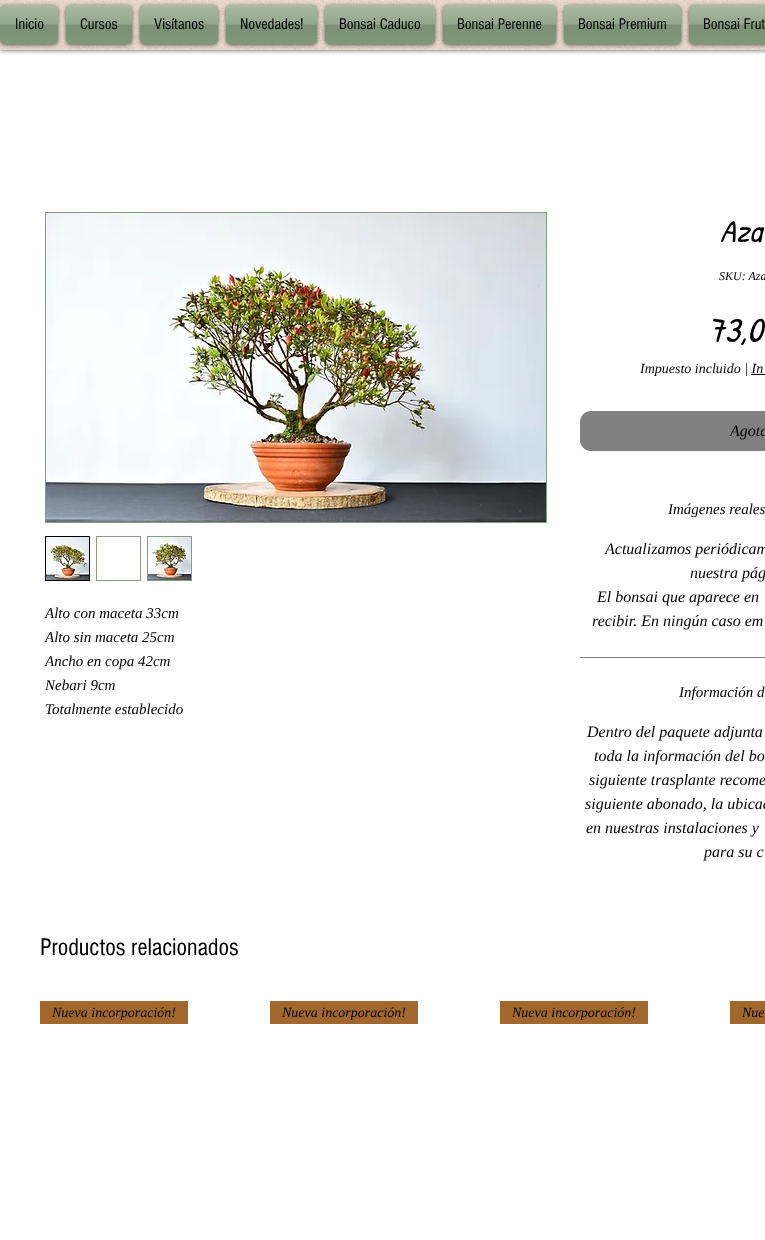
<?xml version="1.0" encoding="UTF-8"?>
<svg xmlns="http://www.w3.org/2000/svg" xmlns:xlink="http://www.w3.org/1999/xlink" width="765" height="1240">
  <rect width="100%" height="100%" fill="#ffffff" />
  <rect width="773" height="50" fill="#000000" fill-opacity="0.7" filter="blur(2.5px)" />
  <rect width="765" height="50" fill="#eddccd" />
  <image x="0" y="0" width="765" height="50" xlink:href="image1.png" />
  <rect y="6" width="58" height="39" rx="5" fill="#000000" fill-opacity="0.6" filter="blur(2px)" />
  <rect y="5" width="58" height="39" rx="5" fill="#859c7e" />
  <image x="0" y="5" width="58" height="39" xlink:href="image2.png" />
  <rect x="66" y="6" width="66" height="39" rx="5" fill="#000000" fill-opacity="0.6" filter="blur(2px)" />
  <rect x="66" y="5" width="66" height="39" rx="5" fill="#859c7e" />
  <image x="66" y="5" width="66" height="39" xlink:href="image3.png" />
  <rect x="140" y="6" width="78" height="39" rx="5" fill="#000000" fill-opacity="0.6" filter="blur(2px)" />
  <rect x="140" y="5" width="78" height="39" rx="5" fill="#859c7e" />
  <image x="140" y="5" width="78" height="39" xlink:href="image4.png" />
  <rect x="226" y="6" width="91" height="39" rx="5" fill="#000000" fill-opacity="0.6" filter="blur(2px)" />
  <rect x="226" y="5" width="91" height="39" rx="5" fill="#859c7e" />
  <image x="226" y="5" width="91" height="39" xlink:href="image5.png" />
  <rect x="325" y="6" width="110" height="39" rx="5" fill="#000000" fill-opacity="0.6" filter="blur(2px)" />
  <rect x="325" y="5" width="110" height="39" rx="5" fill="#859c7e" />
  <image x="325" y="5" width="110" height="39" xlink:href="image6.png" />
  <rect x="443" y="6" width="113" height="39" rx="5" fill="#000000" fill-opacity="0.6" filter="blur(2px)" />
  <rect x="443" y="5" width="113" height="39" rx="5" fill="#859c7e" />
  <image x="443" y="5" width="113" height="39" xlink:href="image7.png" />
  <rect x="564" y="6" width="117" height="39" rx="5" fill="#000000" fill-opacity="0.6" filter="blur(2px)" />
  <rect x="564" y="5" width="117" height="39" rx="5" fill="#859c7e" />
  <image x="564" y="5" width="117" height="39" xlink:href="image8.png" />
  <rect x="689" y="6" width="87" height="39" rx="5" fill="#000000" fill-opacity="0.6" filter="blur(2px)" />
  <rect x="689" y="5" width="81" height="39" rx="5" fill="#859c7e" />
  <image x="689" y="5" width="76" height="39" xlink:href="image9.png" />
  <rect x="45.5" y="212.5" width="501" height="310" fill="none" stroke="#859c7e" />
  <image x="46" y="213" width="500" height="309" xlink:href="image10.png" />
  <rect x="45.5" y="536.5" width="44" height="44" fill="none" stroke="#000000" />
  <image x="46" y="537" width="43" height="43" xlink:href="image11.png" />
  <rect x="96.5" y="536.5" width="44" height="44" fill="none" stroke="#859c7e" />
  <rect x="147.5" y="536.5" width="44" height="44" fill="none" stroke="#859c7e" />
  <image x="148" y="537" width="43" height="43" xlink:href="image12.png" />
  <rect x="751" y="374" width="14" height="1" fill="#000000" />
  <rect x="580" y="411" width="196" height="40" rx="11" fill="#808080" />
  <rect x="580" y="657" width="185" height="1" fill="#808080" />
  <rect x="40" y="1001" width="148" height="23" fill="#a2672d" />
  <rect x="270" y="1001" width="148" height="23" fill="#a2672d" />
  <rect x="500" y="1001" width="148" height="23" fill="#a2672d" />
  <rect x="730" y="1001" width="35" height="23" fill="#a2672d" />
  <text x="15" y="29" style="font-family: 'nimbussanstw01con'; font-size: 16px; fill: #000000">Inicio</text>
  <text x="80" y="29" style="font-family: 'nimbussanstw01con'; font-size: 16px; fill: #000000">Cursos</text>
  <text x="154" y="29" style="font-family: 'nimbussanstw01con'; font-size: 16px; fill: #000000">Visítanos</text>
  <text x="240" y="29" style="font-family: 'nimbussanstw01con'; font-size: 16px; fill: #000000">Novedades!</text>
  <text x="339" y="29" style="font-family: 'nimbussanstw01con'; font-size: 16px; fill: #000000">Bonsai Caduco</text>
  <text x="457" y="29" style="font-family: 'nimbussanstw01con'; font-size: 16px; fill: #000000">Bonsai Perenne</text>
  <text x="578" y="29" style="font-family: 'nimbussanstw01con'; font-size: 16px; fill: #000000">Bonsai Premium</text>
  <text x="703" y="29" style="font-family: 'nimbussanstw01con'; font-size: 16px; fill: #000000">Bonsai Frut</text>
  <text x="45" y="618" style="font-family: Liberation Serif; font-size: 15px; font-style: italic; fill: #000000">Alto con maceta 33cm</text>
  <text x="45" y="642" style="font-family: Liberation Serif; font-size: 15px; font-style: italic; fill: #000000">Alto sin maceta 25cm</text>
  <text x="45" y="666" style="font-family: Liberation Serif; font-size: 15px; font-style: italic; fill: #000000">Ancho en copa 42cm</text>
  <text x="45" y="690" style="font-family: Liberation Serif; font-size: 15px; font-style: italic; fill: #000000">Nebari 9cm</text>
  <text x="45" y="714" style="font-family: Liberation Serif; font-size: 15px; font-style: italic; fill: #000000">Totalmente establecido</text>
  <text x="720" y="242" style="font-family: Patrick Hand; font-size: 32px; font-style: italic; fill: #000000">Aza</text>
  <text x="719" y="280" style="font-family: Liberation Serif; font-size: 12px; font-style: italic; fill: #000000">SKU: Aza</text>
  <text x="707" y="342" style="font-family: Patrick Hand; font-size: 35px; font-style: italic; fill: #000000">73,0</text>
  <text x="640" y="373" style="font-family: Liberation Serif; font-size: 14px; font-style: italic; fill: #000000">Impuesto incluido | In</text>
  <text x="730" y="436" style="font-family: Liberation Serif; font-size: 16px; font-style: italic; fill: #000000">Agota</text>
  <text x="668" y="514" style="font-family: Liberation Serif; font-size: 15px; font-style: italic; fill: #000000">Imágenes reales</text>
  <text x="605" y="554" style="font-family: Liberation Serif; font-size: 16px; font-style: italic; fill: #000000">Actualizamos periódicam</text>
  <text x="690" y="578" style="font-family: Liberation Serif; font-size: 16px; font-style: italic; fill: #000000">nuestra pág</text>
  <text x="597" y="602" style="font-family: Liberation Serif; font-size: 16px; font-style: italic; fill: #000000">El bonsai que aparece en</text>
  <text x="592" y="626" style="font-family: Liberation Serif; font-size: 16px; font-style: italic; fill: #000000">recibir. En ningún caso em</text>
  <text x="679" y="697" style="font-family: Liberation Serif; font-size: 15px; font-style: italic; fill: #000000">Información d</text>
  <text x="587" y="737" style="font-family: Liberation Serif; font-size: 16px; font-style: italic; fill: #000000">Dentro del paquete adjunta</text>
  <text x="594" y="761" style="font-family: Liberation Serif; font-size: 16px; font-style: italic; fill: #000000">toda la información del bo</text>
  <text x="589" y="785" style="font-family: Liberation Serif; font-size: 16px; font-style: italic; fill: #000000">siguiente trasplante recome</text>
  <text x="585" y="809" style="font-family: Liberation Serif; font-size: 16px; font-style: italic; fill: #000000">siguiente abonado, la ubicac</text>
  <text x="586" y="833" style="font-family: Liberation Serif; font-size: 16px; font-style: italic; fill: #000000">en nuestras instalaciones y</text>
  <text x="704" y="857" style="font-family: Liberation Serif; font-size: 16px; font-style: italic; fill: #000000">para su c</text>
  <text x="40" y="955" style="font-family: 'nimbussanstw01con'; font-size: 25px; fill: #000000">Productos relacionados</text>
  <text x="52" y="1017" style="font-family: Liberation Serif; font-size: 14px; font-style: italic; fill: #000000">Nueva incorporación!</text>
  <text x="282" y="1017" style="font-family: Liberation Serif; font-size: 14px; font-style: italic; fill: #000000">Nueva incorporación!</text>
  <text x="512" y="1017" style="font-family: Liberation Serif; font-size: 14px; font-style: italic; fill: #000000">Nueva incorporación!</text>
  <text x="742" y="1017" style="font-family: Liberation Serif; font-size: 14px; font-style: italic; fill: #000000">Nue</text>
</svg>
